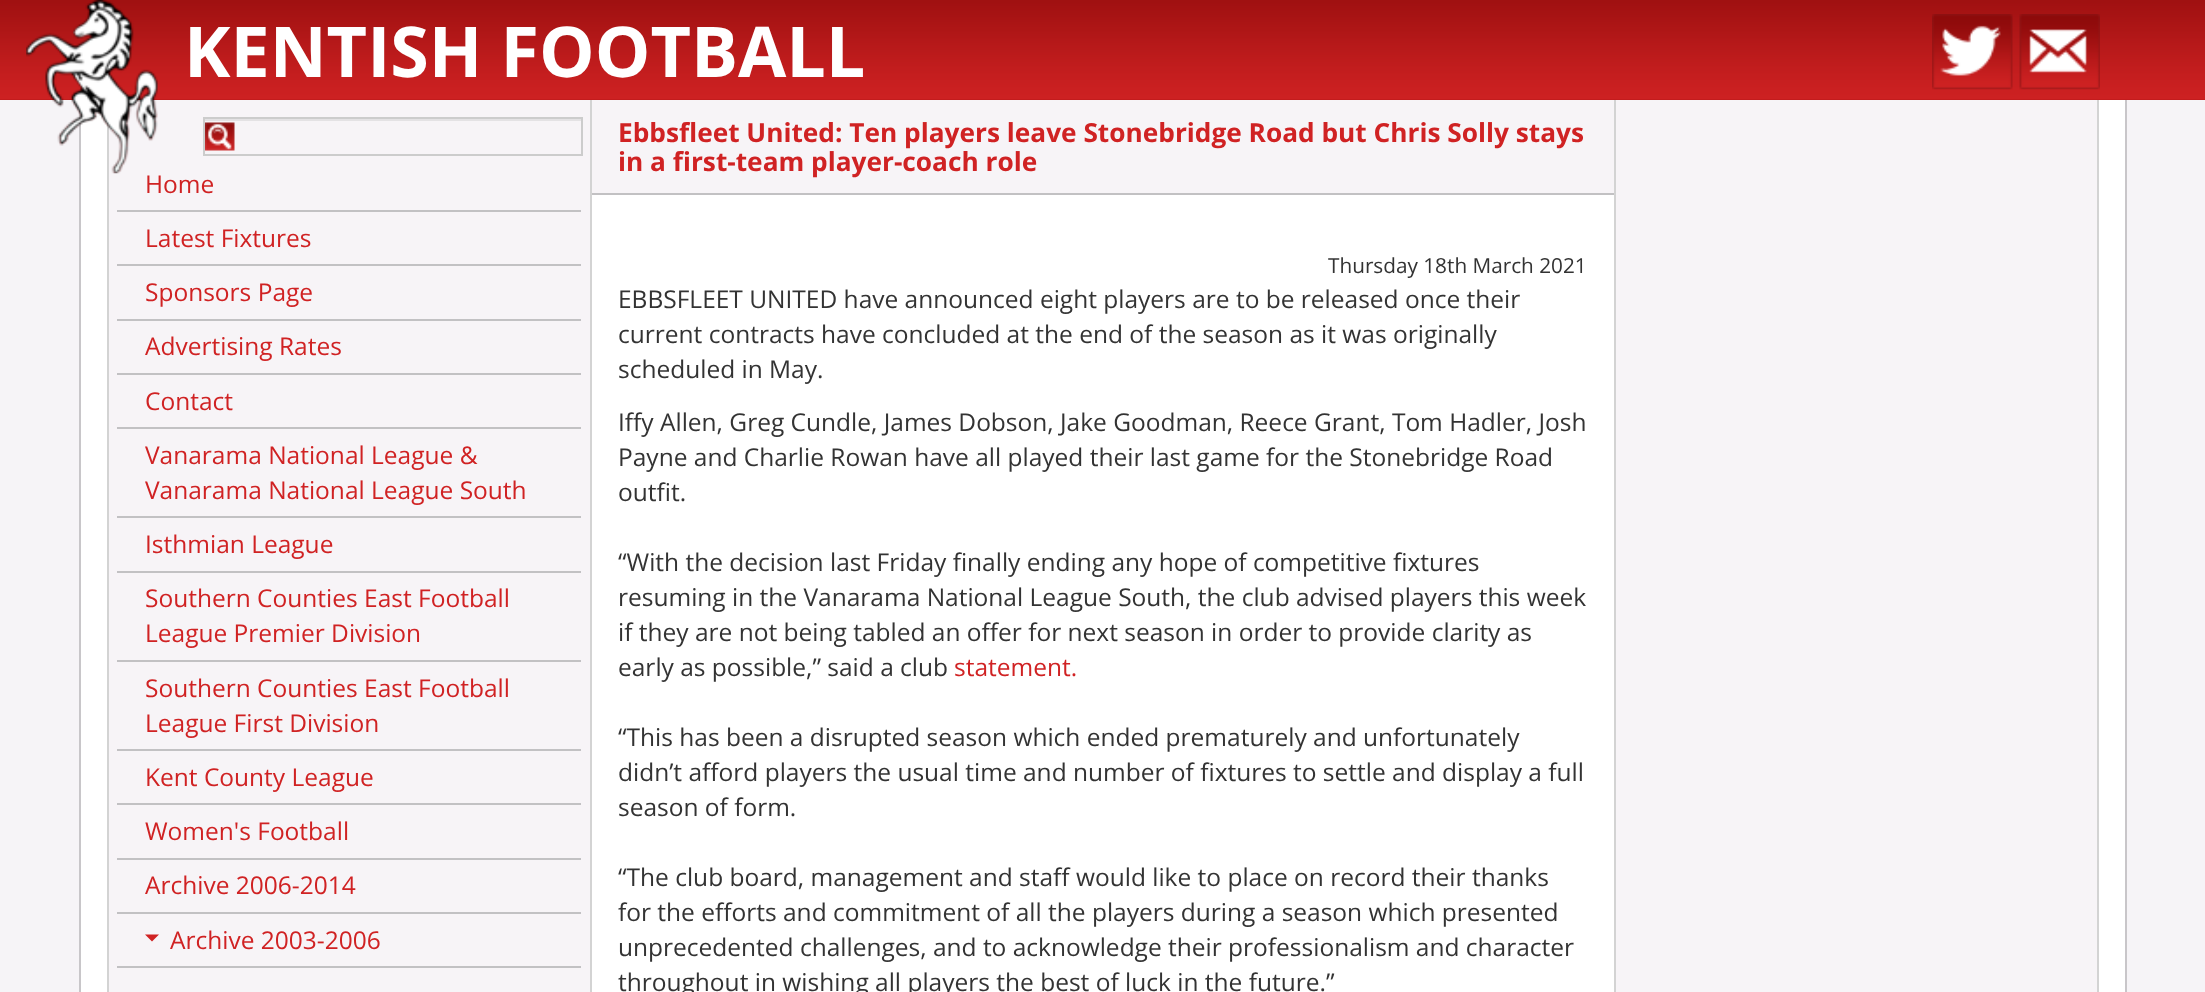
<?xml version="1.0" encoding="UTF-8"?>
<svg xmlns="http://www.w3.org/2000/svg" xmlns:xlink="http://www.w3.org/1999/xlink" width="2205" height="992">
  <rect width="100%" height="100%" fill="#ffffff" />
  <image x="0" y="99" width="2205" height="1" xlink:href="image1.png" />
  <image x="0" y="0" width="2205" height="100" xlink:href="image2.png" />
  <rect y="100" width="2205" height="892" fill="#f6f4f7" />
  <rect x="81" y="100" width="2044" height="892" fill="#ffffff" />
  <rect x="79" y="100" width="2" height="892" fill="#c8c6c9" />
  <rect x="109" y="100" width="481" height="892" fill="#f7f4f7" />
  <rect x="107" y="120" width="2" height="872" fill="#d3d3d3" />
  <image x="26" y="0" width="132" height="174" xlink:href="image3.png" />
  <image x="1932" y="14" width="81" height="76" xlink:href="image4.png" />
  <image x="2019" y="14" width="81" height="76" xlink:href="image5.png" />
  <rect x="2125" y="100" width="2" height="892" fill="#c8c6c9" />
  <rect x="590" y="100" width="2" height="892" fill="#d3d3d3" />
  <image x="205" y="122" width="30" height="29" xlink:href="image6.png" />
  <rect x="205" y="119" width="376" height="2" fill="#e4e2e4" />
  <rect x="204" y="118" width="378" height="37" fill="none" stroke="#cccccc" stroke-width="2" />
  <rect x="117" y="210" width="464" height="2" fill="#c2c1c3" />
  <rect x="117" y="264" width="464" height="2" fill="#c2c1c3" />
  <rect x="117" y="319" width="464" height="2" fill="#c2c1c3" />
  <rect x="117" y="373" width="464" height="2" fill="#c2c1c3" />
  <rect x="117" y="427" width="464" height="2" fill="#c2c1c3" />
  <rect x="117" y="516" width="464" height="2" fill="#c2c1c3" />
  <rect x="117" y="571" width="464" height="2" fill="#c2c1c3" />
  <rect x="117" y="660" width="464" height="2" fill="#c2c1c3" />
  <rect x="117" y="749" width="464" height="2" fill="#c2c1c3" />
  <rect x="117" y="803" width="464" height="2" fill="#c2c1c3" />
  <rect x="117" y="858" width="464" height="2" fill="#c2c1c3" />
  <rect x="117" y="912" width="464" height="2" fill="#c2c1c3" />
  <rect x="117" y="966" width="464" height="2" fill="#c2c1c3" />
  <path d="M 145 934.5 h 14 l -7 7 z" fill="#d02223" />
  <rect x="592" y="100" width="1022" height="93" fill="#f7f4f7" />
  <rect x="592" y="193" width="1022" height="2" fill="#c2c1c3" />
  <rect x="1616" y="100" width="481" height="892" fill="#f7f4f7" />
  <rect x="2097" y="100" width="2" height="892" fill="#d3d3d3" />
  <rect x="1614" y="100" width="2" height="892" fill="#d3d3d3" />
  <text x="184" y="77" style="font-family: Open Sans; font-size: 70px; font-weight: bold; fill: #ffffff">KENTISH FOOTBALL</text>
  <text x="145" y="193" style="font-family: Open Sans; font-size: 24.5px; fill: #d02223">Home</text>
  <text x="145" y="247" style="font-family: Open Sans; font-size: 24.5px; fill: #d02223">Latest Fixtures</text>
  <text x="145" y="301" style="font-family: Open Sans; font-size: 24.5px; fill: #d02223">Sponsors Page</text>
  <text x="145" y="355" style="font-family: Open Sans; font-size: 24.5px; fill: #d02223">Advertising Rates</text>
  <text x="145" y="410" style="font-family: Open Sans; font-size: 24.5px; fill: #d02223">Contact</text>
  <text x="145" y="464" style="font-family: Open Sans; font-size: 24.5px; fill: #d02223">Vanarama National League &amp;</text>
  <text x="145" y="499" style="font-family: Open Sans; font-size: 24.5px; fill: #d02223">Vanarama National League South</text>
  <text x="145" y="553" style="font-family: Open Sans; font-size: 24.5px; fill: #d02223">Isthmian League</text>
  <text x="145" y="607" style="font-family: Open Sans; font-size: 24.5px; fill: #d02223">Southern Counties East Football</text>
  <text x="145" y="642" style="font-family: Open Sans; font-size: 24.5px; fill: #d02223">League Premier Division</text>
  <text x="145" y="697" style="font-family: Open Sans; font-size: 24.5px; fill: #d02223">Southern Counties East Football</text>
  <text x="145" y="732" style="font-family: Open Sans; font-size: 24.5px; fill: #d02223">League First Division</text>
  <text x="145" y="786" style="font-family: Open Sans; font-size: 24.5px; fill: #d02223">Kent County League</text>
  <text x="145" y="840" style="font-family: Open Sans; font-size: 24.5px; fill: #d02223">Women's Football</text>
  <text x="145" y="894" style="font-family: Open Sans; font-size: 24.5px; fill: #d02223">Archive 2006-2014</text>
  <text x="170" y="949" style="font-family: Open Sans; font-size: 24.5px; fill: #d02223">Archive 2003-2006</text>
  <text x="618" y="142" style="font-family: Open Sans; font-size: 26.25px; font-weight: bold; fill: #d02223">Ebbsfleet United: Ten players leave Stonebridge Road but Chris Solly stays</text>
  <text x="618" y="171" style="font-family: Open Sans; font-size: 26.25px; font-weight: bold; fill: #d02223">in a first-team player-coach role</text>
  <text x="1328" y="273" style="font-family: Open Sans; font-size: 20.75px; fill: #333333">Thursday 18th March 2021</text>
  <text x="618" y="308" style="font-family: Open Sans; font-size: 24.5px; fill: #333333">EBBSFLEET UNITED have announced eight players are to be released once their</text>
  <text x="618" y="343" style="font-family: Open Sans; font-size: 24.5px; fill: #333333">current contracts have concluded at the end of the season as it was originally</text>
  <text x="618" y="378" style="font-family: Open Sans; font-size: 24.5px; fill: #333333">scheduled in May.</text>
  <text x="618" y="431" style="font-family: Open Sans; font-size: 24.5px; fill: #333333">Iffy Allen, Greg Cundle, James Dobson, Jake Goodman, Reece Grant, Tom Hadler, Josh</text>
  <text x="618" y="466" style="font-family: Open Sans; font-size: 24.5px; fill: #333333">Payne and Charlie Rowan have all played their last game for the Stonebridge Road</text>
  <text x="618" y="501" style="font-family: Open Sans; font-size: 24.5px; fill: #333333">outfit.</text>
  <text x="618" y="571" style="font-family: Open Sans; font-size: 24.5px; fill: #333333">“With the decision last Friday finally ending any hope of competitive fixtures</text>
  <text x="618" y="606" style="font-family: Open Sans; font-size: 24.5px; fill: #333333">resuming in the Vanarama National League South, the club advised players this week</text>
  <text x="618" y="641" style="font-family: Open Sans; font-size: 24.5px; fill: #333333">if they are not being tabled an offer for next season in order to provide clarity as</text>
  <text x="618" y="676" style="font-family: Open Sans; font-size: 24.5px; fill: #333333">early as possible,” said a club</text>
  <text x="954" y="676" style="font-family: Open Sans; font-size: 24.5px; fill: #d02223">statement.</text>
  <text x="618" y="746" style="font-family: Open Sans; font-size: 24.5px; fill: #333333">“This has been a disrupted season which ended prematurely and unfortunately</text>
  <text x="618" y="781" style="font-family: Open Sans; font-size: 24.5px; fill: #333333">didn’t afford players the usual time and number of fixtures to settle and display a full</text>
  <text x="618" y="816" style="font-family: Open Sans; font-size: 24.5px; fill: #333333">season of form.</text>
  <text x="618" y="886" style="font-family: Open Sans; font-size: 24.5px; fill: #333333">“The club board, management and staff would like to place on record their thanks</text>
  <text x="618" y="921" style="font-family: Open Sans; font-size: 24.5px; fill: #333333">for the efforts and commitment of all the players during a season which presented</text>
  <text x="618" y="956" style="font-family: Open Sans; font-size: 24.5px; fill: #333333">unprecedented challenges, and to acknowledge their professionalism and character</text>
  <text x="618" y="991" style="font-family: Open Sans; font-size: 24.5px; fill: #333333">throughout in wishing all players the best of luck in the future.”</text>
</svg>
